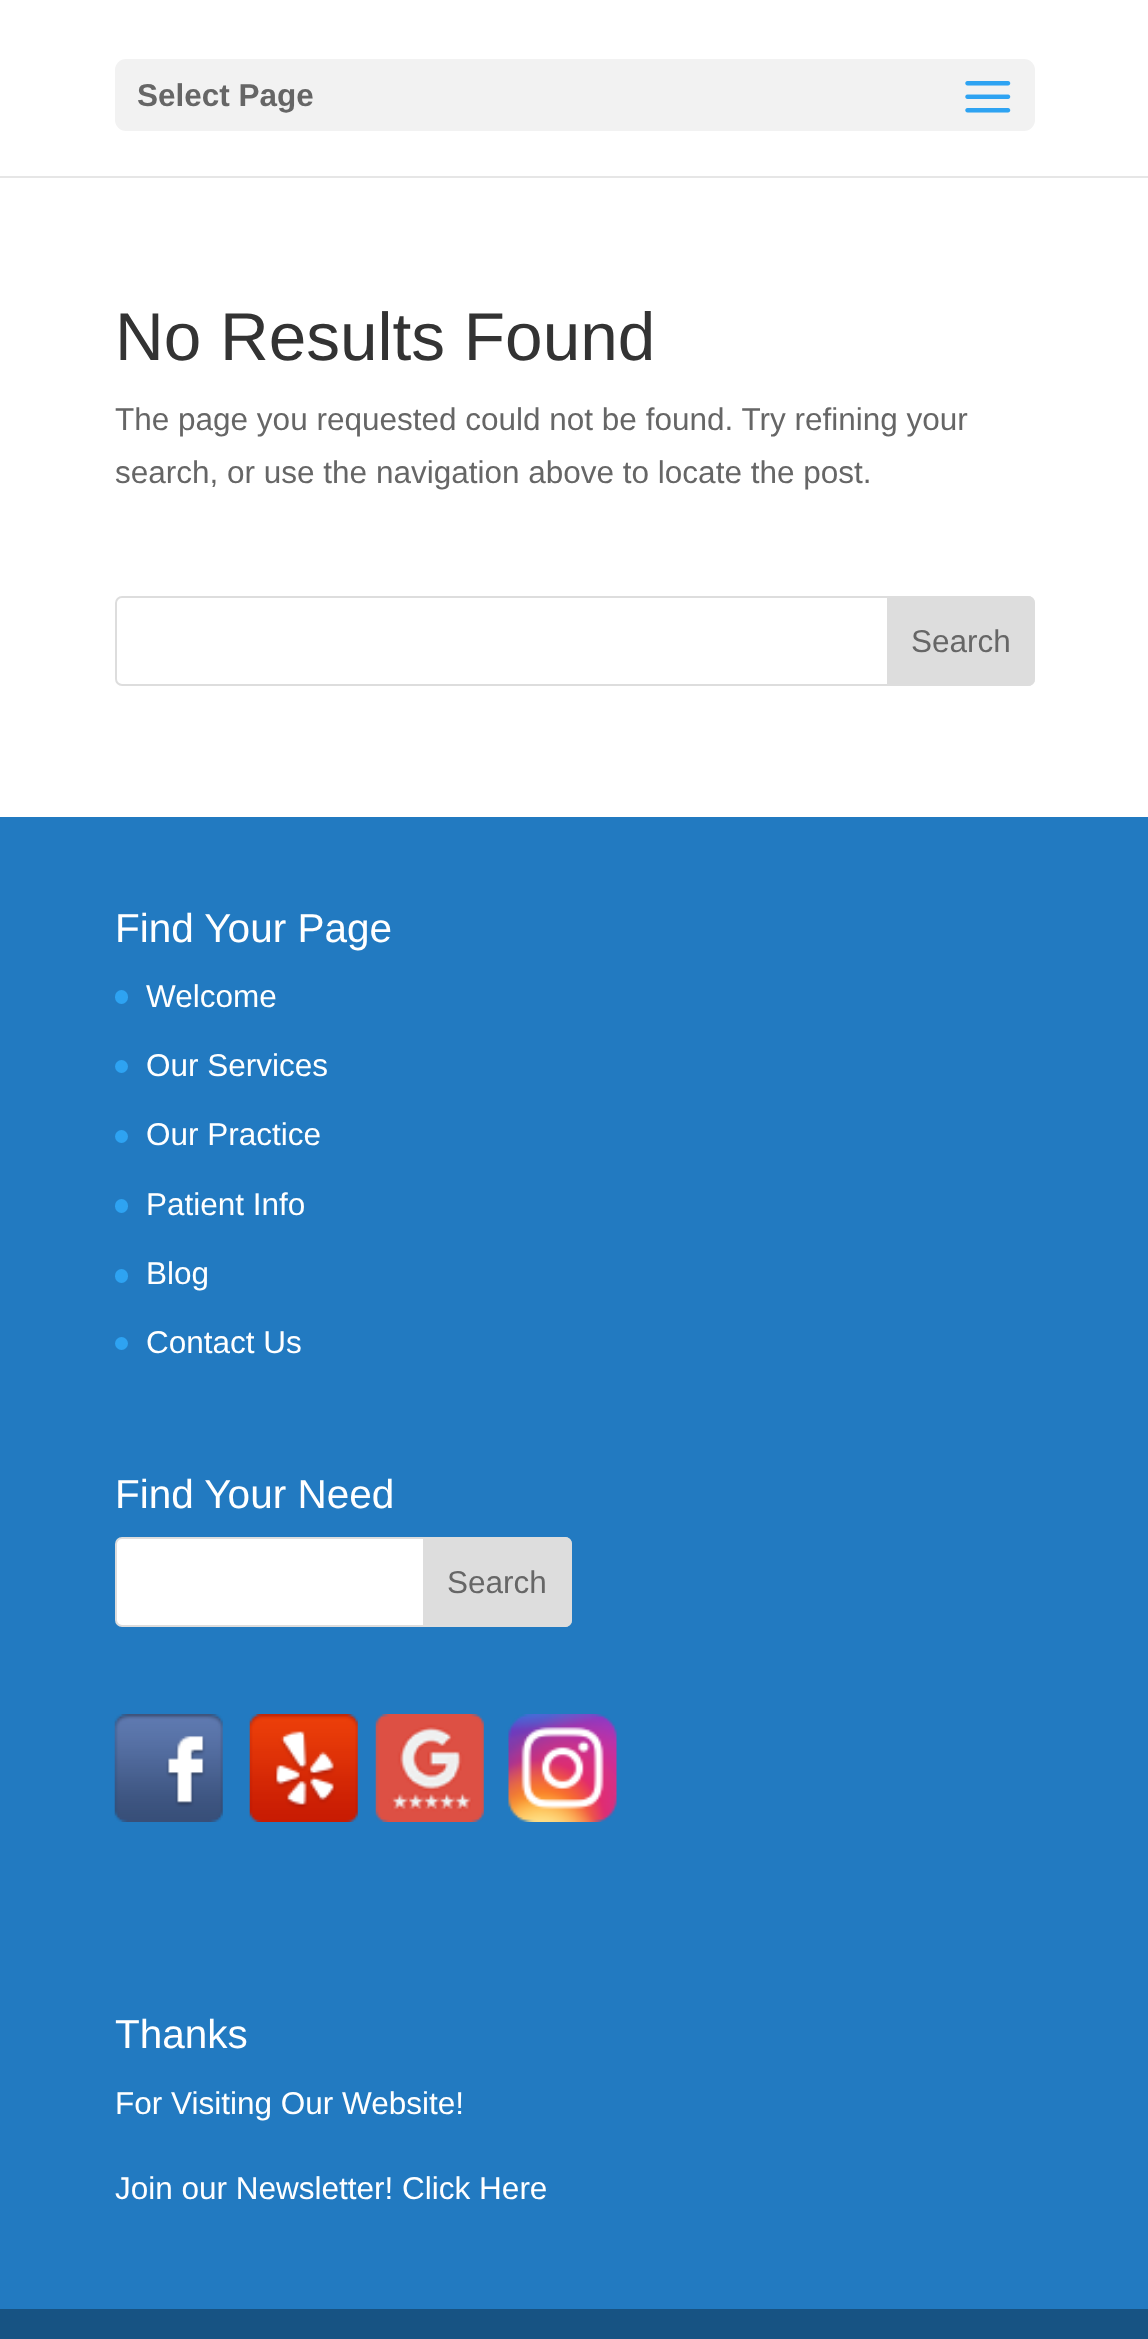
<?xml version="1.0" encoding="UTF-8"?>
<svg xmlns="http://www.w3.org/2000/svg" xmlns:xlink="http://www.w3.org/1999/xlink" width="1148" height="2339">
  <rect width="100%" height="100%" fill="#ffffff" />
  <path d="M 0 176 v 2 h 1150 v -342 v 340 z" fill="#e6e6e6" />
  <rect x="115" y="59" width="920" height="72" rx="11" fill="#f2f2f2" />
  <image x="965" y="81" width="46" height="32" xlink:href="image1.png" />
  <rect x="116" y="597" width="918" height="88" rx="6" fill="none" stroke="#dddddd" stroke-width="2" />
  <path d="M 888 597 h 140 c 3.5 0 6 2.5 6 6 v 76 c 0 3.5 -2.5 6 -6 6 h -140 z" fill="#dddddd" stroke="#dddddd" stroke-width="2" />
  <rect y="817" width="1148" height="1492" fill="#227ac1" />
  <rect x="115" y="990" width="13" height="14" rx="6.5" fill="#2ea3f2" />
  <circle cx="121.5" cy="1066.5" r="6.5" fill="#2ea3f2" />
  <circle cx="121.5" cy="1136.5" r="6.5" fill="#2ea3f2" />
  <rect x="115" y="1199" width="13" height="14" rx="6.5" fill="#2ea3f2" />
  <rect x="115" y="1269" width="13" height="14" rx="6.5" fill="#2ea3f2" />
  <circle cx="121.5" cy="1343.5" r="6.5" fill="#2ea3f2" />
  <rect x="116" y="1538" width="455" height="88" rx="6" fill="#ffffff" stroke="#dddddd" stroke-width="2" />
  <path d="M 424 1538 h 141 c 3.5 0 6 2.5 6 6 v 76 c 0 3.5 -2.5 6 -6 6 h -141 z" fill="#dddddd" stroke="#dddddd" stroke-width="2" />
  <image x="114" y="1714" width="109" height="108" xlink:href="image2.png" />
  <image x="249" y="1714" width="109" height="108" xlink:href="image3.png" />
  <image x="375" y="1714" width="109" height="108" xlink:href="image4.png" />
  <image x="508" y="1714" width="109" height="108" xlink:href="image5.png" />
  <rect y="2309" width="1148" height="30" fill="#175383" />
  <text x="137" y="106" style="font-family: Liberation Sans; font-size: 31.5px; font-weight: bold; fill: #666666">Select Page</text>
  <text x="115" y="360" style="font-family: Liberation Sans; font-size: 67.5px; fill: #333333">No Results Found</text>
  <text x="115" y="430" style="font-family: Liberation Sans; font-size: 31.5px; fill: #666666">The page you requested could not be found. Try refining your</text>
  <text x="115" y="483" style="font-family: Liberation Sans; font-size: 31.5px; fill: #666666">search, or use the navigation above to locate the post.</text>
  <text x="911" y="652" style="font-family: Liberation Sans; font-size: 31.5px; fill: #666666">Search</text>
  <text x="115" y="942" style="font-family: Liberation Sans; font-size: 40.5px; fill: #ffffff">Find Your Page</text>
  <text x="146" y="1007" style="font-family: Liberation Sans; font-size: 31.5px; fill: #ffffff">Welcome</text>
  <text x="146" y="1076" style="font-family: Liberation Sans; font-size: 31.5px; fill: #ffffff">Our Services</text>
  <text x="146" y="1145" style="font-family: Liberation Sans; font-size: 31.5px; fill: #ffffff">Our Practice</text>
  <text x="146" y="1215" style="font-family: Liberation Sans; font-size: 31.5px; fill: #ffffff">Patient Info</text>
  <text x="146" y="1284" style="font-family: Liberation Sans; font-size: 31.5px; fill: #ffffff">Blog</text>
  <text x="146" y="1353" style="font-family: Liberation Sans; font-size: 31.5px; fill: #ffffff">Contact Us</text>
  <text x="115" y="1508" style="font-family: Liberation Sans; font-size: 40.5px; fill: #ffffff">Find Your Need</text>
  <text x="447" y="1593" style="font-family: Liberation Sans; font-size: 31.5px; fill: #666666">Search</text>
  <text x="115" y="2048" style="font-family: Liberation Sans; font-size: 40.5px; fill: #ffffff">Thanks</text>
  <text x="115" y="2114" style="font-family: Liberation Sans; font-size: 31.5px; fill: #ffffff">For Visiting Our Website!</text>
  <text x="115" y="2199" style="font-family: Liberation Sans; font-size: 31.5px; fill: #ffffff">Join our Newsletter! Click Here</text>
</svg>
